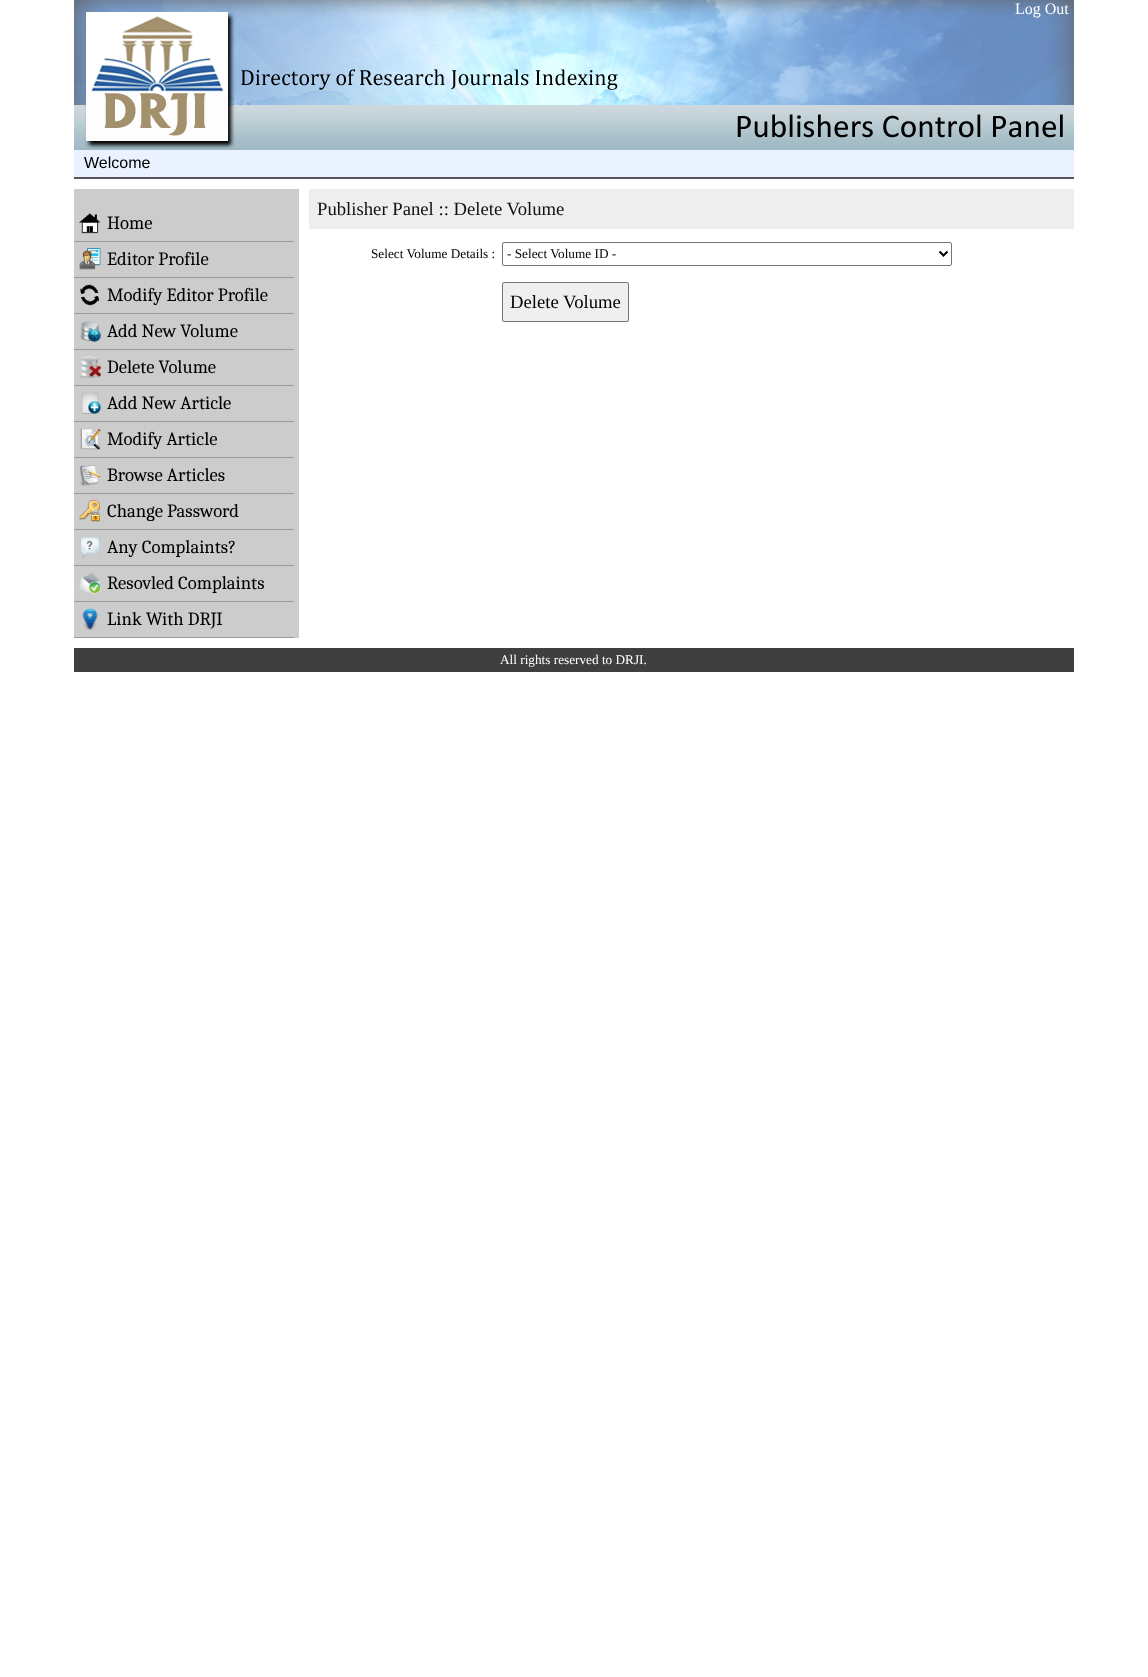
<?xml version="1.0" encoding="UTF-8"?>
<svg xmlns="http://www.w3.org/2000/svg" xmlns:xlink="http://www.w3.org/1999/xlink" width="1148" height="1677">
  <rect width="100%" height="100%" fill="#ffffff" />
  <image x="74" y="0" width="1000" height="150" xlink:href="image1.png" />
  <rect x="74" y="150" width="1000" height="27" fill="#ebf2ff" />
  <rect x="74" y="177" width="1000" height="2" fill="#565656" />
  <rect x="74" y="189" width="225" height="449" fill="#cccccc" />
  <rect x="74" y="241" width="220" height="1" fill="#999999" />
  <image x="79" y="213" width="22" height="21" xlink:href="image2.png" />
  <rect x="74" y="277" width="220" height="1" fill="#999999" />
  <image x="79" y="248" width="22" height="22" xlink:href="image3.png" />
  <rect x="74" y="313" width="220" height="1" fill="#999999" />
  <image x="80" y="284" width="20" height="22" xlink:href="image4.png" />
  <rect x="74" y="349" width="220" height="1" fill="#999999" />
  <image x="80" y="321" width="21" height="21" xlink:href="image5.png" />
  <rect x="74" y="385" width="220" height="1" fill="#999999" />
  <image x="80" y="356" width="21" height="22" xlink:href="image6.png" />
  <rect x="74" y="421" width="220" height="1" fill="#999999" />
  <image x="81" y="392" width="20" height="22" xlink:href="image7.png" />
  <rect x="74" y="457" width="220" height="1" fill="#999999" />
  <image x="80" y="428" width="21" height="22" xlink:href="image8.png" />
  <rect x="74" y="493" width="220" height="1" fill="#999999" />
  <image x="79" y="465" width="22" height="21" xlink:href="image9.png" />
  <rect x="74" y="529" width="220" height="1" fill="#999999" />
  <image x="79" y="500" width="21" height="22" xlink:href="image10.png" />
  <rect x="74" y="565" width="220" height="1" fill="#999999" />
  <image x="80" y="537" width="20" height="21" xlink:href="image11.png" />
  <rect x="74" y="601" width="220" height="1" fill="#999999" />
  <image x="79" y="572" width="22" height="22" xlink:href="image12.png" />
  <rect x="74" y="637" width="220" height="1" fill="#999999" />
  <image x="82" y="608" width="16" height="22" xlink:href="image13.png" />
  <rect x="309" y="189" width="765" height="40" fill="#eeeeee" />
  <rect x="502.5" y="242.5" width="449" height="23" rx="1.5" fill="none" stroke="#767676" />
  <path d="M 939.5 251.5 l 4 4 l 4 -4" fill="none" stroke="#000000" stroke-width="2" />
  <rect x="502.5" y="282.5" width="126" height="39" rx="1.5" fill="#efefef" stroke="#767676" />
  <rect x="74" y="648" width="1000" height="24" fill="#3f3f3f" />
  <text x="1015" y="14" style="font-family: Liberation Serif; font-size: 16px; fill: #ffffff">Log Out</text>
  <text x="84" y="168" style="font-family: Liberation Sans; font-size: 16px; fill: #000000">Welcome</text>
  <text x="107" y="229" style="font-family: Caladea; font-size: 18.7px; fill: #000000">Home</text>
  <text x="107" y="265" style="font-family: Caladea; font-size: 18.7px; fill: #000000">Editor Profile</text>
  <text x="107" y="301" style="font-family: Caladea; font-size: 18.7px; fill: #000000">Modify Editor Profile</text>
  <text x="107" y="337" style="font-family: Caladea; font-size: 18.7px; fill: #000000">Add New Volume</text>
  <text x="107" y="373" style="font-family: Caladea; font-size: 18.7px; fill: #000000">Delete Volume</text>
  <text x="107" y="409" style="font-family: Caladea; font-size: 18.7px; fill: #000000">Add New Article</text>
  <text x="107" y="445" style="font-family: Caladea; font-size: 18.7px; fill: #000000">Modify Article</text>
  <text x="107" y="481" style="font-family: Caladea; font-size: 18.7px; fill: #000000">Browse Articles</text>
  <text x="107" y="517" style="font-family: Caladea; font-size: 18.7px; fill: #000000">Change Password</text>
  <text x="107" y="553" style="font-family: Caladea; font-size: 18.7px; fill: #000000">Any Complaints?</text>
  <text x="107" y="589" style="font-family: Caladea; font-size: 18.7px; fill: #000000">Resovled Complaints</text>
  <text x="107" y="625" style="font-family: Caladea; font-size: 18.7px; fill: #000000">Link With DRJI</text>
  <text x="317" y="215" style="font-family: Liberation Serif; font-size: 18.7px; fill: #111111">Publisher Panel :: Delete Volume</text>
  <text x="371" y="258" style="font-family: Liberation Serif; font-size: 13.25px; fill: #000000">Select Volume Details :</text>
  <text x="507" y="258" style="font-family: Liberation Serif; font-size: 13.25px; fill: #000000">- Select Volume ID -</text>
  <text x="510" y="308" style="font-family: Liberation Serif; font-size: 18.7px; fill: #000000">Delete Volume</text>
  <text x="500" y="664" style="font-family: Liberation Serif; font-size: 13.25px; fill: #ffffff">All rights reserved to DRJI.</text>
</svg>
